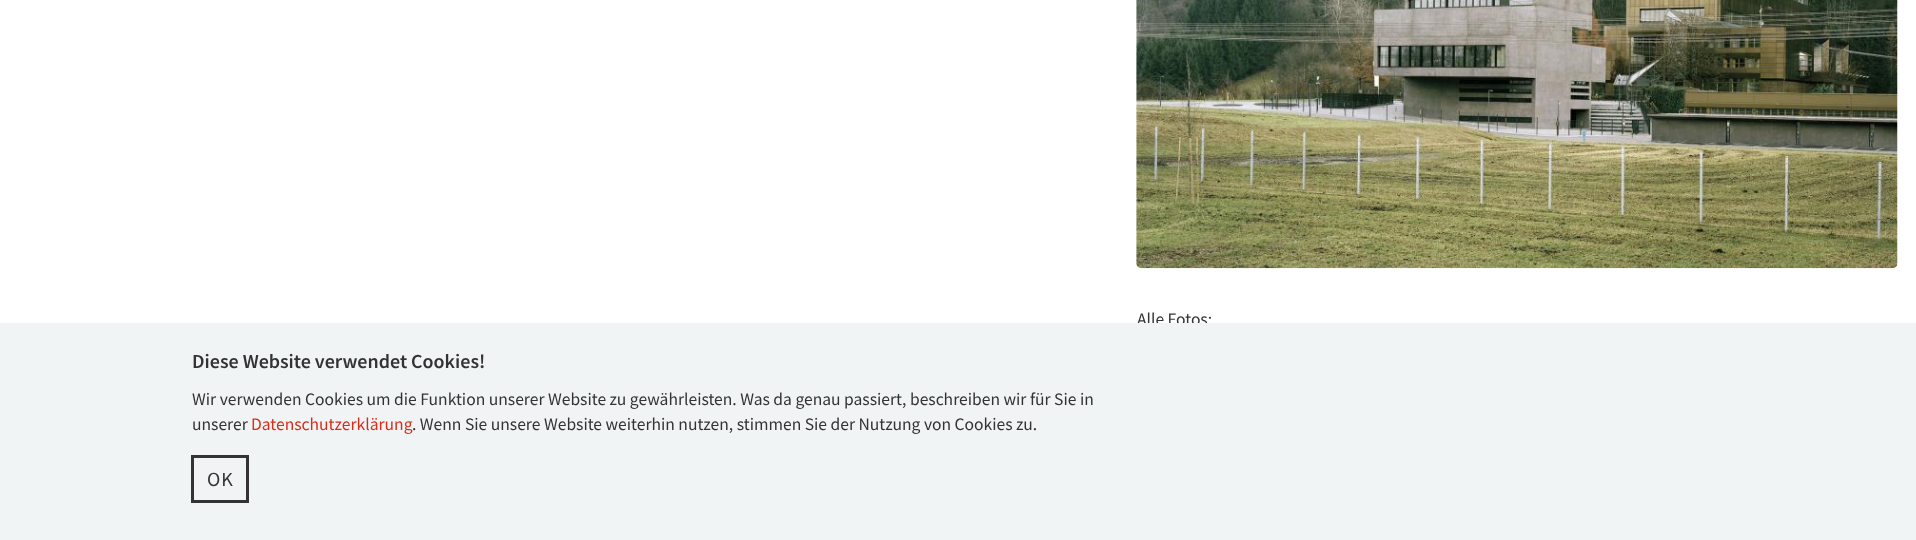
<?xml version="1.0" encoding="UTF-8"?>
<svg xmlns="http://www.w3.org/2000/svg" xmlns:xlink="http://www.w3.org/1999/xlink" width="1916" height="540">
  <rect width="100%" height="100%" fill="#ffffff" />
  <image x="1136" y="0" width="762" height="269" xlink:href="image1.png" />
  <text x="1137" y="325" style="font-family: Source Sans Pro; font-size: 17.5px; fill: #333333">Alle Fotos:</text>
  <rect y="323" width="1916" height="217" fill="#f1f4f5" />
  <text x="192" y="368" style="font-family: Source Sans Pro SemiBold; font-size: 20px; font-weight: 600; fill: #333333">Diese Website verwendet Cookies!</text>
  <text x="192" y="405" style="font-family: Source Sans Pro; font-size: 17.5px; fill: #333333">Wir verwenden Cookies um die Funktion unserer Website zu gewährleisten. Was da genau passiert, beschreiben wir für Sie in</text>
  <text x="192" y="430" style="font-family: Source Sans Pro; font-size: 17.5px; fill: #333333">unserer</text>
  <text x="251" y="430" style="font-family: Source Sans Pro; font-size: 17.5px; fill: #db2b19">Datenschutzerklärung</text>
  <text x="412" y="430" style="font-family: Source Sans Pro; font-size: 17.5px; fill: #333333">. Wenn Sie unsere Website weiterhin nutzen, stimmen Sie der Nutzung von Cookies zu.</text>
  <rect x="192.5" y="456.5" width="55" height="45" fill="none" stroke="#333333" stroke-width="3" />
  <text x="207" y="486" style="font-family: Source Sans Pro; font-size: 20px; letter-spacing: 1px; fill: #333333">OK</text>
</svg>
